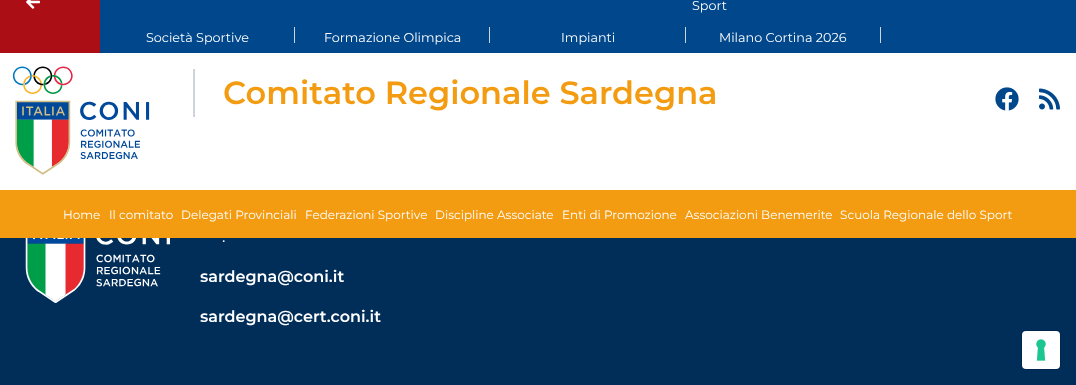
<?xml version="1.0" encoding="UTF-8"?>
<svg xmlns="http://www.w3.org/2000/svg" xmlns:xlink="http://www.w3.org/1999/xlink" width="1076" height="385">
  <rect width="100%" height="100%" fill="#012d59" />
  <rect y="53" width="1076" height="137" fill="#ffffff" />
  <rect x="100" width="976" height="53" fill="#01478c" />
  <rect width="100" height="53" fill="#ab0f15" />
  <image x="26" y="0" width="14" height="9" xlink:href="image1.png" />
  <rect x="294" y="27" width="1" height="16" fill="#ced4da" />
  <rect x="489" y="27" width="1" height="16" fill="#ced4da" />
  <rect x="685" y="27" width="1" height="16" fill="#ced4da" />
  <rect x="880" y="27" width="1" height="16" fill="#ced4da" />
  <image x="12" y="66" width="138" height="109" xlink:href="image2.png" />
  <rect x="193" y="69" width="2" height="48" fill="#ced4da" />
  <image x="995" y="87" width="24" height="24" xlink:href="image3.png" />
  <image x="1039" y="88" width="21" height="22" xlink:href="image4.png" />
  <rect y="190" width="1076" height="48" fill="#f39c12" />
  <image x="25" y="238" width="145" height="65" xlink:href="image5.png" />
  <rect x="1021.5" y="330.5" width="39" height="39" rx="4.5" fill="none" stroke="#01264c" />
  <rect x="1022" y="331" width="38" height="38" rx="4" fill="#ffffff" />
  <image x="1036" y="339" width="10" height="22" xlink:href="image6.png" />
  <text x="692" y="10" style="font-family: Montserrat; font-size: 12.75px; fill: #ffffff">Sport</text>
  <text x="146" y="42" style="font-family: Montserrat; font-size: 12.75px; fill: #ffffff">Società Sportive</text>
  <text x="324" y="42" style="font-family: Montserrat; font-size: 12.75px; fill: #ffffff">Formazione Olimpica</text>
  <text x="561" y="42" style="font-family: Montserrat; font-size: 12.75px; fill: #ffffff">Impianti</text>
  <text x="719" y="42" style="font-family: Montserrat; font-size: 12.75px; fill: #ffffff">Milano Cortina 2026</text>
  <text x="223" y="104" style="font-family: Montserrat; font-size: 32px; font-weight: 600; fill: #f39c12">Comitato Regionale Sardegna</text>
  <text x="63" y="219" style="font-family: Montserrat; font-size: 12px; fill: #ffffff">Home</text>
  <text x="109" y="219" style="font-family: Montserrat; font-size: 12px; fill: #ffffff">Il comitato</text>
  <text x="181" y="219" style="font-family: Montserrat; font-size: 12px; fill: #ffffff">Delegati Provinciali</text>
  <text x="305" y="219" style="font-family: Montserrat; font-size: 12px; fill: #ffffff">Federazioni Sportive</text>
  <text x="435" y="219" style="font-family: Montserrat; font-size: 12px; fill: #ffffff">Discipline Associate</text>
  <text x="562" y="219" style="font-family: Montserrat; font-size: 12px; fill: #ffffff">Enti di Promozione</text>
  <text x="685" y="219" style="font-family: Montserrat; font-size: 12px; fill: #ffffff">Associazioni Benemerite</text>
  <text x="840" y="219" style="font-family: Montserrat; font-size: 12px; fill: #ffffff">Scuola Regionale dello Sport</text>
  <text x="222" y="242" style="font-family: Montserrat; font-size: 16px; fill: #ffffff">.</text>
  <text x="200" y="282" style="font-family: Montserrat; font-size: 16px; font-weight: 600; fill: #ffffff">sardegna@coni.it</text>
  <text x="200" y="322" style="font-family: Montserrat; font-size: 16px; font-weight: 600; fill: #ffffff">sardegna@cert.coni.it</text>
</svg>
